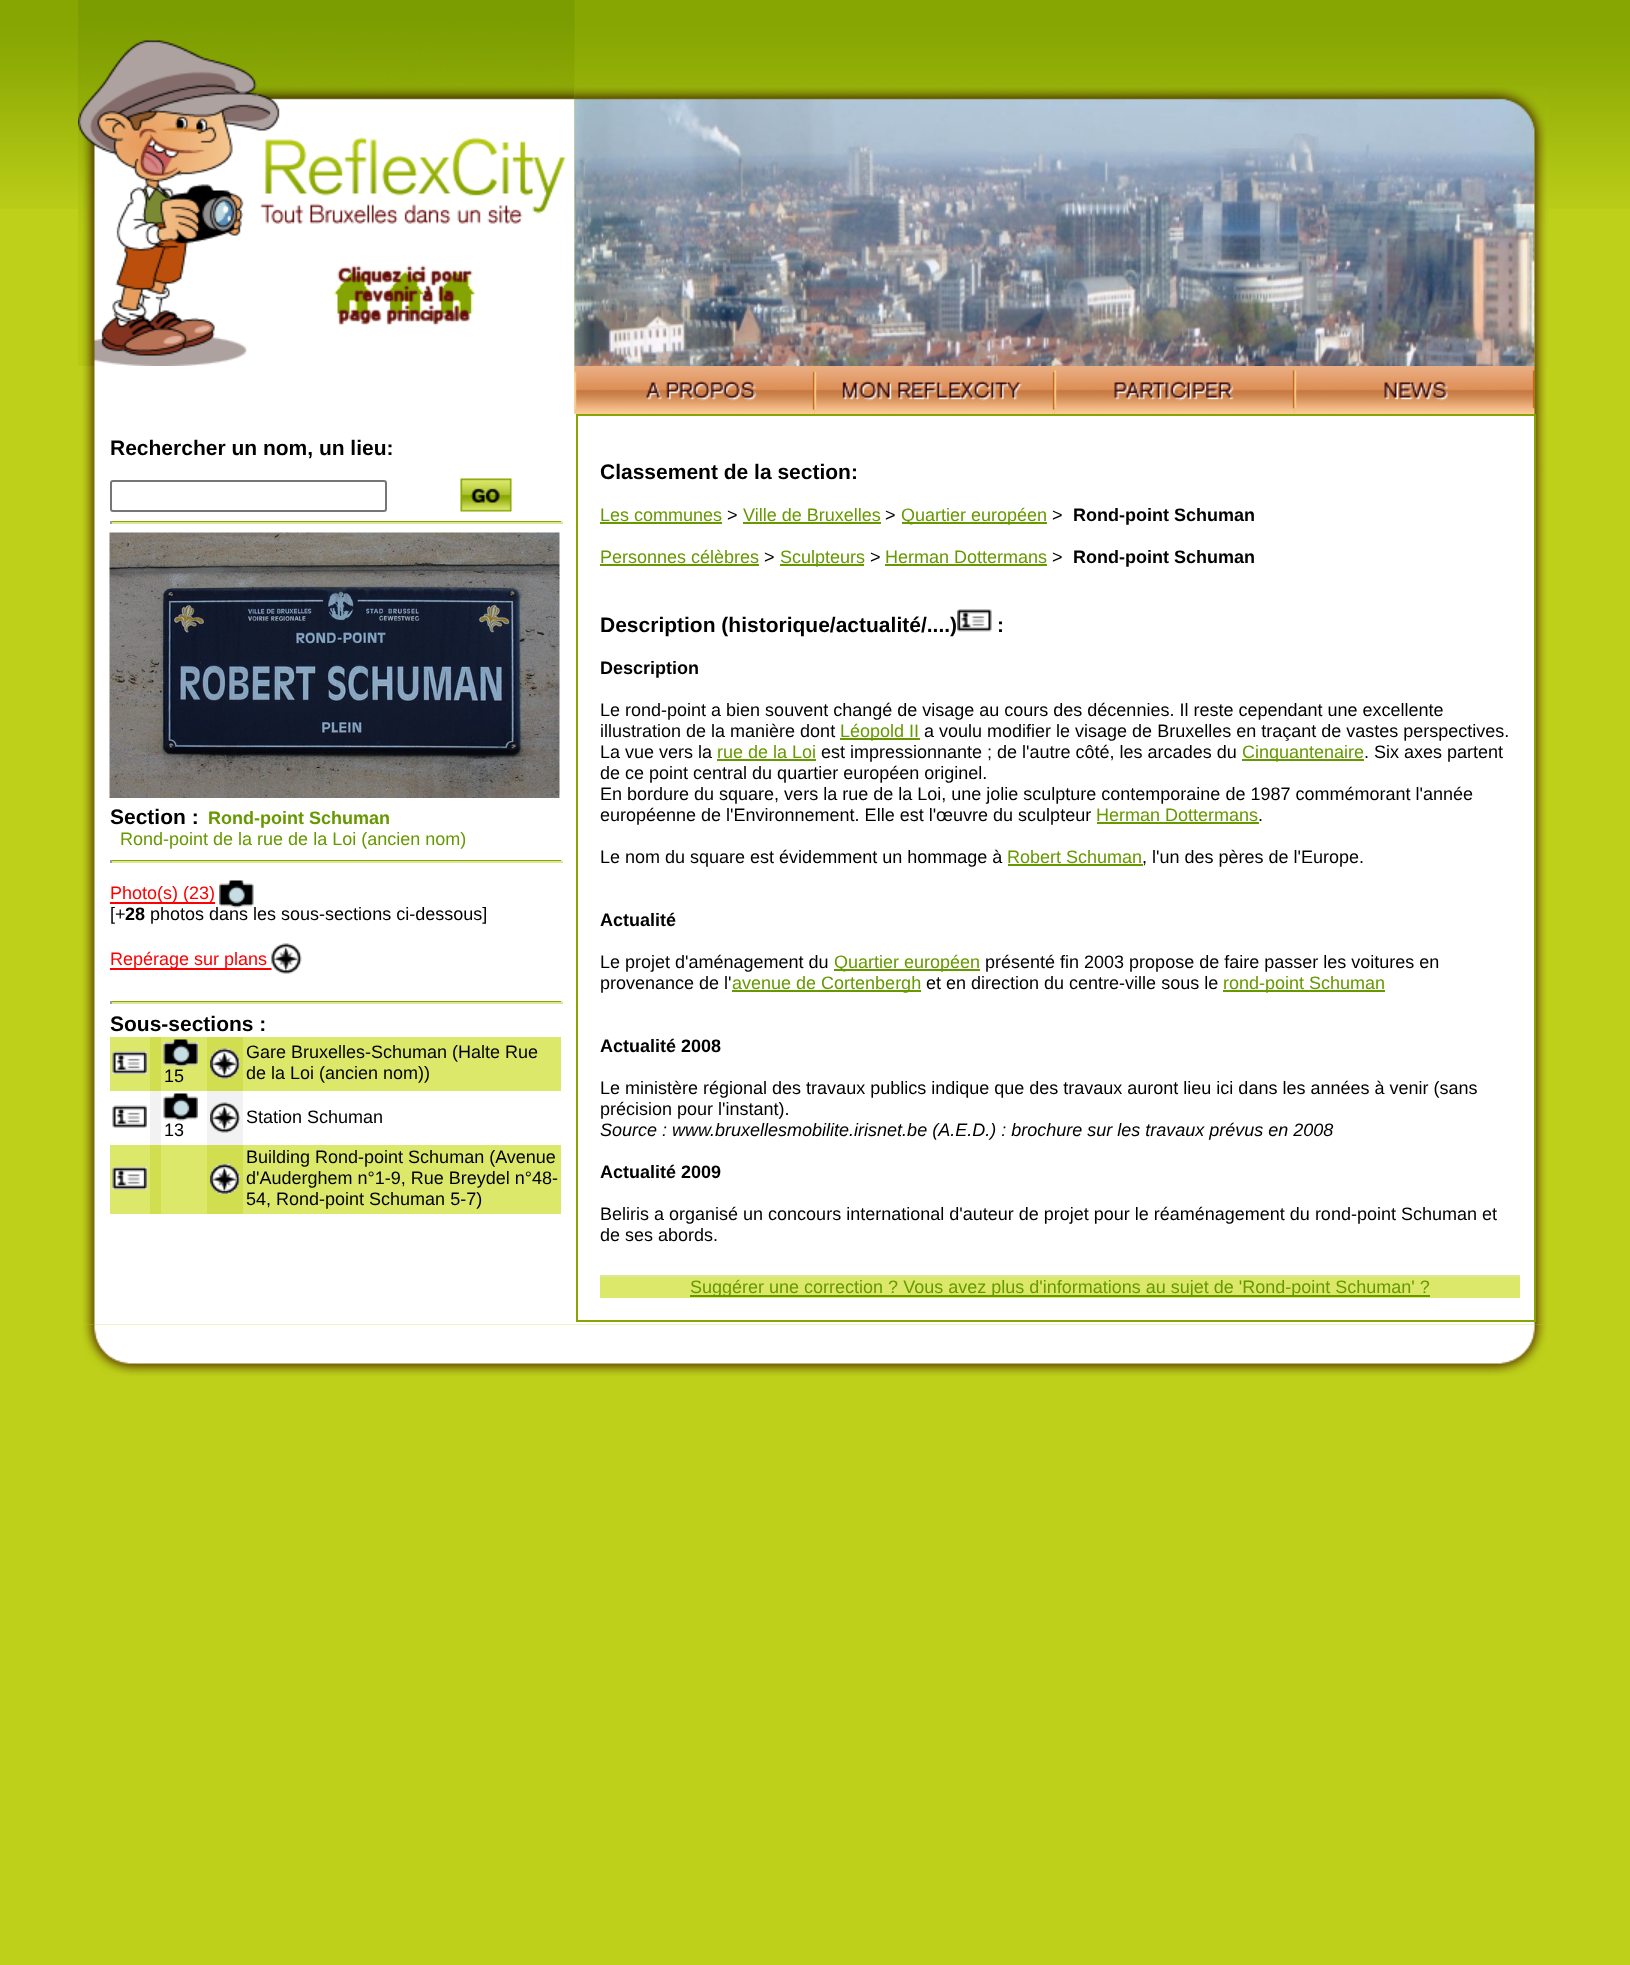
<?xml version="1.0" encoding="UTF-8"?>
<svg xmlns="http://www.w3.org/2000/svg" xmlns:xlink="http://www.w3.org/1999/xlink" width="1630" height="1965">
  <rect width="100%" height="100%" fill="#bed01a" />
  <image x="0" y="0" width="1630" height="209" xlink:href="image1.png" />
  <image x="78" y="0" width="497" height="366" xlink:href="image2.png" />
  <image x="574" y="99" width="961" height="267" xlink:href="image4.png" />
  <image x="574" y="87" width="975" height="279" xlink:href="image3.png" />
  <image x="82" y="366" width="493" height="48" xlink:href="image5.png" />
  <image x="574" y="366" width="241" height="48" xlink:href="image6.png" />
  <image x="814" y="366" width="241" height="48" xlink:href="image7.png" />
  <image x="1054" y="366" width="241" height="48" xlink:href="image8.png" />
  <image x="1294" y="366" width="241" height="48" xlink:href="image9.png" />
  <image x="1534" y="366" width="13" height="48" xlink:href="image10.png" />
  <image x="82" y="414" width="1465" height="911" xlink:href="image11.png" />
  <rect x="111" y="481" width="275" height="30" rx="2" fill="none" stroke="#767676" stroke-width="2" />
  <image x="460" y="478" width="52" height="34" xlink:href="image12.png" />
  <rect x="110" y="521" width="453" height="1" fill="#87a602" />
  <rect x="561" y="521" width="2" height="3" fill="#eeeeee" />
  <rect x="110" y="522" width="453" height="2" fill="#d9e997" />
  <rect x="110" y="521" width="2" height="3" fill="#9f9f9f" />
  <image x="109" y="532" width="451" height="266" xlink:href="image13.png" />
  <rect x="110" y="860" width="453" height="1" fill="#87a602" />
  <rect x="561" y="860" width="2" height="3" fill="#eeeeee" />
  <rect x="110" y="861" width="453" height="2" fill="#d9e997" />
  <rect x="110" y="860" width="2" height="3" fill="#9f9f9f" />
  <rect x="110" y="902" width="105" height="2" fill="#ff0000" />
  <image x="219" y="880" width="35" height="28" xlink:href="image14.png" />
  <rect x="110" y="968" width="162" height="2" fill="#ff0000" />
  <image x="271" y="943" width="31" height="31" xlink:href="image15.png" />
  <rect x="110" y="1001" width="453" height="1" fill="#87a602" />
  <rect x="561" y="1001" width="2" height="3" fill="#eeeeee" />
  <rect x="110" y="1002" width="453" height="2" fill="#d9e997" />
  <rect x="110" y="1001" width="2" height="3" fill="#9f9f9f" />
  <rect x="110" y="1037" width="40" height="54" fill="#dce86a" />
  <image x="112" y="1051" width="35" height="23" xlink:href="image16.png" />
  <rect x="150" y="1037" width="11" height="54" fill="#d0de4f" />
  <rect x="161" y="1037" width="46" height="54" fill="#dce86a" />
  <image x="163" y="1039" width="35" height="28" xlink:href="image17.png" />
  <rect x="207" y="1037" width="36" height="54" fill="#d0de4f" />
  <image x="210" y="1048" width="30" height="31" xlink:href="image18.png" />
  <rect x="243" y="1037" width="318" height="54" fill="#dce86a" />
  <image x="112" y="1105" width="35" height="23" xlink:href="image19.png" />
  <rect x="150" y="1091" width="11" height="54" fill="#f2f2f2" />
  <rect x="207" y="1091" width="36" height="54" fill="#f2f2f2" />
  <image x="210" y="1102" width="30" height="31" xlink:href="image20.png" />
  <image x="163" y="1093" width="35" height="28" xlink:href="image21.png" />
  <rect x="110" y="1145" width="40" height="69" fill="#dce86a" />
  <image x="112" y="1167" width="35" height="23" xlink:href="image22.png" />
  <rect x="150" y="1145" width="11" height="69" fill="#d0de4f" />
  <rect x="161" y="1145" width="46" height="69" fill="#dce86a" />
  <rect x="207" y="1145" width="36" height="69" fill="#d0de4f" />
  <image x="210" y="1164" width="30" height="30" xlink:href="image23.png" />
  <rect x="243" y="1145" width="318" height="69" fill="#dce86a" />
  <rect x="577" y="415" width="958" height="906" fill="none" stroke="#87a602" stroke-width="2" />
  <rect x="600" y="522" width="122" height="2" fill="#669900" />
  <rect x="743" y="522" width="138" height="2" fill="#669900" />
  <rect x="902" y="522" width="145" height="2" fill="#669900" />
  <rect x="600" y="564" width="159" height="2" fill="#669900" />
  <rect x="780" y="564" width="84" height="2" fill="#669900" />
  <rect x="885" y="564" width="162" height="2" fill="#669900" />
  <image x="957" y="609" width="35" height="23" xlink:href="image24.png" />
  <rect x="840" y="738" width="80" height="2" fill="#669900" />
  <rect x="717" y="759" width="99" height="2" fill="#669900" />
  <rect x="1242" y="759" width="122" height="2" fill="#669900" />
  <rect x="1097" y="822" width="162" height="2" fill="#669900" />
  <rect x="1008" y="864" width="135" height="2" fill="#669900" />
  <rect x="834" y="969" width="146" height="2" fill="#669900" />
  <rect x="732" y="990" width="189" height="2" fill="#669900" />
  <rect x="1223" y="990" width="162" height="2" fill="#669900" />
  <rect x="600" y="1277" width="920" height="21" fill="#dce86a" />
  <rect x="600" y="1275" width="920" height="2" fill="#d9e997" />
  <rect x="690" y="1295" width="740" height="2" fill="#669900" />
  <image x="82" y="1324" width="1465" height="52" xlink:href="image25.png" />
  <text x="110" y="455" style="font-family: Liberation Sans; font-size: 21px; font-weight: bold; fill: #000000">Rechercher un nom, un lieu:</text>
  <text x="110" y="824" style="font-family: Liberation Sans; font-size: 21px; font-weight: bold; fill: #000000">Section :</text>
  <text x="208" y="824" style="font-family: Liberation Sans; font-size: 18px; font-weight: bold; fill: #669900">Rond-point Schuman</text>
  <text x="120" y="845" style="font-family: Liberation Sans; font-size: 18px; fill: #669900">Rond-point de la rue de la Loi (ancien nom)</text>
  <text x="110" y="899" style="font-family: Liberation Sans; font-size: 18px; fill: #ff0000">Photo(s) (23)</text>
  <text x="110" y="920" style="font-family: Liberation Sans; font-size: 18px; fill: #000000">[+</text>
  <text x="125" y="920" style="font-family: Liberation Sans; font-size: 18px; font-weight: bold; fill: #000000">28</text>
  <text x="150" y="920" style="font-family: Liberation Sans; font-size: 18px; fill: #000000">photos dans les sous-sections ci-dessous]</text>
  <text x="110" y="965" style="font-family: Liberation Sans; font-size: 18px; fill: #ff0000">Repérage sur plans</text>
  <text x="110" y="1031" style="font-family: Liberation Sans; font-size: 21px; font-weight: bold; fill: #000000">Sous-sections :</text>
  <text x="164" y="1082" style="font-family: Liberation Sans; font-size: 18px; fill: #000000">15</text>
  <text x="246" y="1058" style="font-family: Liberation Sans; font-size: 18px; fill: #000000">Gare Bruxelles-Schuman (Halte Rue</text>
  <text x="246" y="1079" style="font-family: Liberation Sans; font-size: 18px; fill: #000000">de la Loi (ancien nom))</text>
  <text x="246" y="1123" style="font-family: Liberation Sans; font-size: 18px; fill: #000000">Station Schuman</text>
  <text x="164" y="1136" style="font-family: Liberation Sans; font-size: 18px; fill: #000000">13</text>
  <text x="246" y="1163" style="font-family: Liberation Sans; font-size: 18px; fill: #000000">Building Rond-point Schuman (Avenue</text>
  <text x="246" y="1184" style="font-family: Liberation Sans; font-size: 18px; fill: #000000">d'Auderghem n°1-9, Rue Breydel n°48-</text>
  <text x="246" y="1205" style="font-family: Liberation Sans; font-size: 18px; fill: #000000">54, Rond-point Schuman 5-7)</text>
  <text x="600" y="479" style="font-family: Liberation Sans; font-size: 21px; font-weight: bold; fill: #000000">Classement de la section:</text>
  <text x="600" y="521" style="font-family: Liberation Sans; font-size: 18px; fill: #669900">Les communes</text>
  <text x="727" y="521" style="font-family: Liberation Sans; font-size: 18px; fill: #000000">&gt;</text>
  <text x="743" y="521" style="font-family: Liberation Sans; font-size: 18px; fill: #669900">Ville de Bruxelles</text>
  <text x="885" y="521" style="font-family: Liberation Sans; font-size: 18px; fill: #000000">&gt;</text>
  <text x="901" y="521" style="font-family: Liberation Sans; font-size: 18px; fill: #669900">Quartier européen</text>
  <text x="1052" y="521" style="font-family: Liberation Sans; font-size: 18px; fill: #000000">&gt;</text>
  <text x="1073" y="521" style="font-family: Liberation Sans; font-size: 18px; font-weight: bold; fill: #000000">Rond-point Schuman</text>
  <text x="600" y="563" style="font-family: Liberation Sans; font-size: 18px; fill: #669900">Personnes célèbres</text>
  <text x="764" y="563" style="font-family: Liberation Sans; font-size: 18px; fill: #000000">&gt;</text>
  <text x="780" y="563" style="font-family: Liberation Sans; font-size: 18px; fill: #669900">Sculpteurs</text>
  <text x="870" y="563" style="font-family: Liberation Sans; font-size: 18px; fill: #000000">&gt;</text>
  <text x="885" y="563" style="font-family: Liberation Sans; font-size: 18px; fill: #669900">Herman Dottermans</text>
  <text x="1052" y="563" style="font-family: Liberation Sans; font-size: 18px; fill: #000000">&gt;</text>
  <text x="1073" y="563" style="font-family: Liberation Sans; font-size: 18px; font-weight: bold; fill: #000000">Rond-point Schuman</text>
  <text x="600" y="632" style="font-family: Liberation Sans; font-size: 21px; font-weight: bold; fill: #000000">Description (historique/actualité/....)</text>
  <text x="997" y="632" style="font-family: Liberation Sans; font-size: 21px; font-weight: bold; fill: #000000">:</text>
  <text x="600" y="674" style="font-family: Liberation Sans; font-size: 18px; font-weight: bold; fill: #000000">Description</text>
  <text x="600" y="716" style="font-family: Liberation Sans; font-size: 18px; fill: #000000">Le rond-point a bien souvent changé de visage au cours des décennies. Il reste cependant une excellente</text>
  <text x="600" y="737" style="font-family: Liberation Sans; font-size: 18px; fill: #000000">illustration de la manière dont</text>
  <text x="840" y="737" style="font-family: Liberation Sans; font-size: 18px; fill: #669900">Léopold II</text>
  <text x="924" y="737" style="font-family: Liberation Sans; font-size: 18px; fill: #000000">a voulu modifier le visage de Bruxelles en traçant de vastes perspectives.</text>
  <text x="600" y="758" style="font-family: Liberation Sans; font-size: 18px; fill: #000000">La vue vers la</text>
  <text x="717" y="758" style="font-family: Liberation Sans; font-size: 18px; fill: #669900">rue de la Loi</text>
  <text x="821" y="758" style="font-family: Liberation Sans; font-size: 18px; fill: #000000">est impressionnante ; de l'autre côté, les arcades du</text>
  <text x="1242" y="758" style="font-family: Liberation Sans; font-size: 18px; fill: #669900">Cinquantenaire</text>
  <text x="1364" y="758" style="font-family: Liberation Sans; font-size: 18px; fill: #000000">. Six axes partent</text>
  <text x="600" y="779" style="font-family: Liberation Sans; font-size: 18px; fill: #000000">de ce point central du quartier européen originel.</text>
  <text x="600" y="800" style="font-family: Liberation Sans; font-size: 18px; fill: #000000">En bordure du square, vers la rue de la Loi, une jolie sculpture contemporaine de 1987 commémorant l'année</text>
  <text x="600" y="821" style="font-family: Liberation Sans; font-size: 18px; fill: #000000">européenne de l'Environnement. Elle est l'œuvre du sculpteur</text>
  <text x="1096" y="821" style="font-family: Liberation Sans; font-size: 18px; fill: #669900">Herman Dottermans</text>
  <text x="1258" y="821" style="font-family: Liberation Sans; font-size: 18px; fill: #000000">.</text>
  <text x="600" y="863" style="font-family: Liberation Sans; font-size: 18px; fill: #000000">Le nom du square est évidemment un hommage à</text>
  <text x="1007" y="863" style="font-family: Liberation Sans; font-size: 18px; fill: #669900">Robert Schuman</text>
  <text x="1142" y="863" style="font-family: Liberation Sans; font-size: 18px; fill: #000000">, l'un des pères de l'Europe.</text>
  <text x="600" y="926" style="font-family: Liberation Sans; font-size: 18px; font-weight: bold; fill: #000000">Actualité</text>
  <text x="600" y="968" style="font-family: Liberation Sans; font-size: 18px; fill: #000000">Le projet d'aménagement du</text>
  <text x="834" y="968" style="font-family: Liberation Sans; font-size: 18px; fill: #669900">Quartier européen</text>
  <text x="985" y="968" style="font-family: Liberation Sans; font-size: 18px; fill: #000000">présenté fin 2003 propose de faire passer les voitures en</text>
  <text x="600" y="989" style="font-family: Liberation Sans; font-size: 18px; fill: #000000">provenance de l'</text>
  <text x="732" y="989" style="font-family: Liberation Sans; font-size: 18px; fill: #669900">avenue de Cortenbergh</text>
  <text x="926" y="989" style="font-family: Liberation Sans; font-size: 18px; fill: #000000">et en direction du centre-ville sous le</text>
  <text x="1223" y="989" style="font-family: Liberation Sans; font-size: 18px; fill: #669900">rond-point Schuman</text>
  <text x="600" y="1052" style="font-family: Liberation Sans; font-size: 18px; font-weight: bold; fill: #000000">Actualité 2008</text>
  <text x="600" y="1094" style="font-family: Liberation Sans; font-size: 18px; fill: #000000">Le ministère régional des travaux publics indique que des travaux auront lieu ici dans les années à venir (sans</text>
  <text x="600" y="1115" style="font-family: Liberation Sans; font-size: 18px; fill: #000000">précision pour l'instant).</text>
  <text x="600" y="1136" style="font-family: Liberation Sans; font-size: 18px; font-style: italic; fill: #000000">Source : www.bruxellesmobilite.irisnet.be (A.E.D.) : brochure sur les travaux prévus en 2008</text>
  <text x="600" y="1178" style="font-family: Liberation Sans; font-size: 18px; font-weight: bold; fill: #000000">Actualité 2009</text>
  <text x="600" y="1220" style="font-family: Liberation Sans; font-size: 18px; fill: #000000">Beliris a organisé un concours international d'auteur de projet pour le réaménagement du rond-point Schuman et</text>
  <text x="600" y="1241" style="font-family: Liberation Sans; font-size: 18px; fill: #000000">de ses abords.</text>
  <text x="690" y="1293" style="font-family: Liberation Sans; font-size: 18px; fill: #669900">Suggérer une correction ? Vous avez plus d'informations au sujet de 'Rond-point Schuman' ?</text>
</svg>
